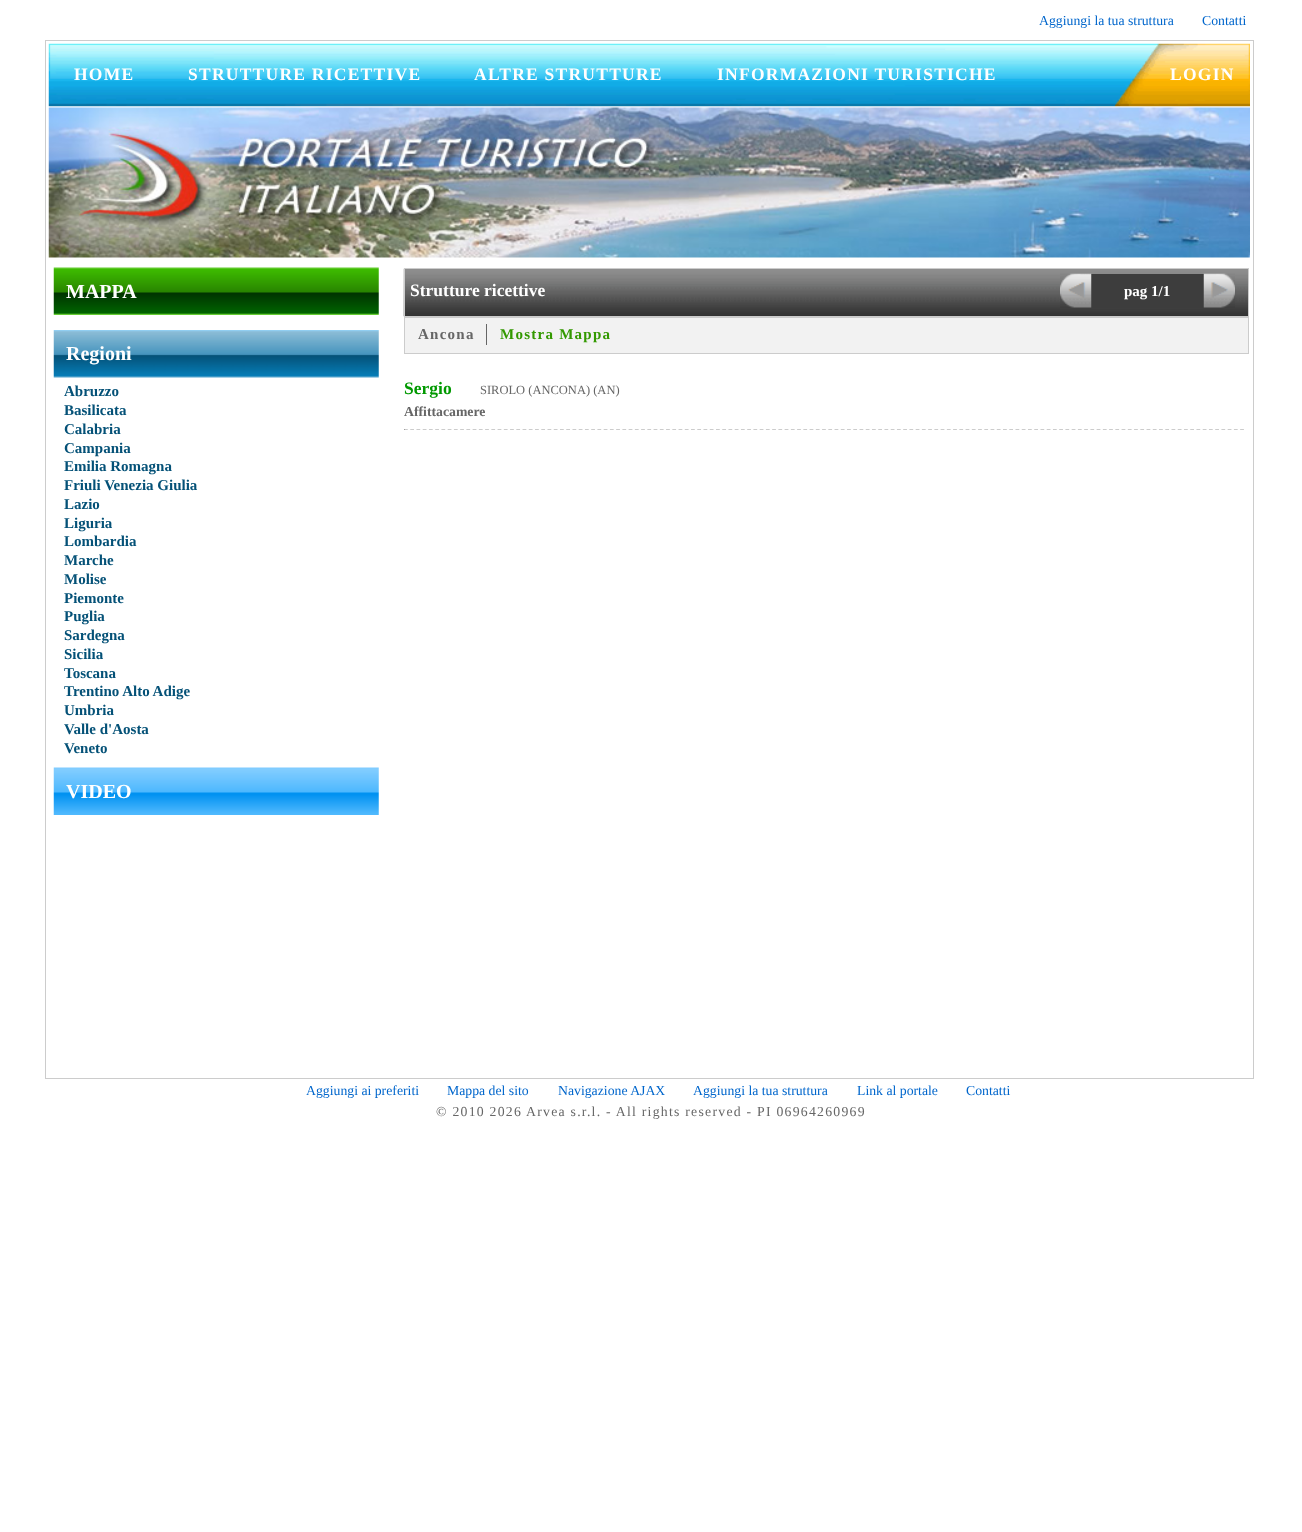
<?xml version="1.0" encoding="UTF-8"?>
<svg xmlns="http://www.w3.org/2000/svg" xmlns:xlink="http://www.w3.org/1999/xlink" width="1302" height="1532">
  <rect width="100%" height="100%" fill="#ffffff" />
  <rect x="45.5" y="40.5" width="1208" height="1038" fill="none" stroke="#cccccc" />
  <image x="48" y="43" width="1202" height="64" xlink:href="image1.png" />
  <image x="48" y="107" width="1202" height="151" xlink:href="image2.png" />
  <image x="53" y="267" width="326" height="48" xlink:href="image3.png" />
  <image x="53" y="330" width="326" height="48" xlink:href="image4.png" />
  <image x="53" y="767" width="326" height="48" xlink:href="image5.png" />
  <image x="403" y="268" width="845" height="49" xlink:href="image6.png" />
  <rect x="404.5" y="268.5" width="844" height="49" fill="none" stroke="#cccccc" />
  <rect x="1060" y="274" width="175" height="34" fill="#3d3d3d" />
  <image x="1060" y="273" width="32" height="35" xlink:href="image7.png" />
  <image x="1203" y="273" width="32" height="35" xlink:href="image8.png" />
  <rect x="405" y="318" width="843" height="35" fill="#f2f2f2" />
  <rect x="1248" y="318" width="1" height="36" fill="#cccccc" />
  <rect x="404" y="353" width="845" height="1" fill="#cccccc" />
  <rect x="404" y="318" width="1" height="36" fill="#cccccc" />
  <rect x="486" y="324" width="1" height="21" fill="#666666" />
  <path d="M 404 429.5 h 840" fill="none" stroke="#cccccc" stroke-width="1.2" stroke-dasharray="3.75 2.49" />
  <rect x="404" y="429" width="1" height="1" fill="#9f9f9f" />
  <text x="1039" y="25" style="font-family: Liberation Serif; font-size: 13.75px; fill: #0066cc">Aggiungi la tua struttura</text>
  <text x="1202" y="25" style="font-family: Liberation Serif; font-size: 13.75px; fill: #0066cc">Contatti</text>
  <text x="74" y="80" style="font-family: Liberation Serif; font-size: 17.5px; font-weight: bold; letter-spacing: 1.25px; fill: #ffffff">HOME</text>
  <text x="188" y="80" style="font-family: Liberation Serif; font-size: 17.5px; font-weight: bold; letter-spacing: 1.25px; fill: #ffffff">STRUTTURE RICETTIVE</text>
  <text x="474" y="80" style="font-family: Liberation Serif; font-size: 17.5px; font-weight: bold; letter-spacing: 1.25px; fill: #ffffff">ALTRE STRUTTURE</text>
  <text x="717" y="80" style="font-family: Liberation Serif; font-size: 17.5px; font-weight: bold; letter-spacing: 1.25px; fill: #ffffff">INFORMAZIONI TURISTICHE</text>
  <text x="1170" y="80" style="font-family: Liberation Serif; font-size: 17.5px; font-weight: bold; letter-spacing: 1.25px; fill: #ffffff">LOGIN</text>
  <text x="66" y="298" style="font-family: Liberation Serif; font-size: 20px; font-weight: bold; fill: #ffffff">MAPPA</text>
  <text x="66" y="360" style="font-family: Liberation Serif; font-size: 20px; font-weight: bold; fill: #ffffff">Regioni</text>
  <text x="64" y="396" style="font-family: Liberation Serif; font-size: 15px; font-weight: bold; fill: #045177">Abruzzo</text>
  <text x="64" y="415" style="font-family: Liberation Serif; font-size: 15px; font-weight: bold; fill: #045177">Basilicata</text>
  <text x="64" y="434" style="font-family: Liberation Serif; font-size: 15px; font-weight: bold; fill: #045177">Calabria</text>
  <text x="64" y="453" style="font-family: Liberation Serif; font-size: 15px; font-weight: bold; fill: #045177">Campania</text>
  <text x="64" y="471" style="font-family: Liberation Serif; font-size: 15px; font-weight: bold; fill: #045177">Emilia Romagna</text>
  <text x="64" y="490" style="font-family: Liberation Serif; font-size: 15px; font-weight: bold; fill: #045177">Friuli Venezia Giulia</text>
  <text x="64" y="509" style="font-family: Liberation Serif; font-size: 15px; font-weight: bold; fill: #045177">Lazio</text>
  <text x="64" y="528" style="font-family: Liberation Serif; font-size: 15px; font-weight: bold; fill: #045177">Liguria</text>
  <text x="64" y="546" style="font-family: Liberation Serif; font-size: 15px; font-weight: bold; fill: #045177">Lombardia</text>
  <text x="64" y="565" style="font-family: Liberation Serif; font-size: 15px; font-weight: bold; fill: #045177">Marche</text>
  <text x="64" y="584" style="font-family: Liberation Serif; font-size: 15px; font-weight: bold; fill: #045177">Molise</text>
  <text x="64" y="603" style="font-family: Liberation Serif; font-size: 15px; font-weight: bold; fill: #045177">Piemonte</text>
  <text x="64" y="621" style="font-family: Liberation Serif; font-size: 15px; font-weight: bold; fill: #045177">Puglia</text>
  <text x="64" y="640" style="font-family: Liberation Serif; font-size: 15px; font-weight: bold; fill: #045177">Sardegna</text>
  <text x="64" y="659" style="font-family: Liberation Serif; font-size: 15px; font-weight: bold; fill: #045177">Sicilia</text>
  <text x="64" y="678" style="font-family: Liberation Serif; font-size: 15px; font-weight: bold; fill: #045177">Toscana</text>
  <text x="64" y="696" style="font-family: Liberation Serif; font-size: 15px; font-weight: bold; fill: #045177">Trentino Alto Adige</text>
  <text x="64" y="715" style="font-family: Liberation Serif; font-size: 15px; font-weight: bold; fill: #045177">Umbria</text>
  <text x="64" y="734" style="font-family: Liberation Serif; font-size: 15px; font-weight: bold; fill: #045177">Valle d'Aosta</text>
  <text x="64" y="753" style="font-family: Liberation Serif; font-size: 15px; font-weight: bold; fill: #045177">Veneto</text>
  <text x="66" y="798" style="font-family: Liberation Serif; font-size: 20px; font-weight: bold; fill: #ffffff">VIDEO</text>
  <text x="410" y="296" style="font-family: Liberation Serif; font-size: 17.5px; font-weight: bold; fill: #ffffff">Strutture ricettive</text>
  <text x="1124" y="296" style="font-family: Liberation Serif; font-size: 15px; font-weight: bold; fill: #ffffff">pag 1/1</text>
  <text x="418" y="339" style="font-family: Liberation Serif; font-size: 15px; font-weight: bold; letter-spacing: 1.25px; fill: #666666">Ancona</text>
  <text x="500" y="339" style="font-family: Liberation Serif; font-size: 15px; font-weight: bold; letter-spacing: 1.25px; fill: #339900">Mostra Mappa</text>
  <text x="404" y="394" style="font-family: Liberation Serif; font-size: 17.5px; font-weight: bold; fill: #009900">Sergio</text>
  <text x="480" y="394" style="font-family: Liberation Serif; font-size: 12.5px; fill: #666666">SIROLO (ANCONA) (AN)</text>
  <text x="404" y="416" style="font-family: Liberation Serif; font-size: 13.75px; font-weight: bold; fill: #666666">Affittacamere</text>
  <text x="306" y="1095" style="font-family: Liberation Serif; font-size: 13.75px; fill: #0066cc">Aggiungi ai preferiti</text>
  <text x="447" y="1095" style="font-family: Liberation Serif; font-size: 13.75px; fill: #0066cc">Mappa del sito</text>
  <text x="558" y="1095" style="font-family: Liberation Serif; font-size: 13.75px; fill: #0066cc">Navigazione AJAX</text>
  <text x="693" y="1095" style="font-family: Liberation Serif; font-size: 13.75px; fill: #0066cc">Aggiungi la tua struttura</text>
  <text x="857" y="1095" style="font-family: Liberation Serif; font-size: 13.75px; fill: #0066cc">Link al portale</text>
  <text x="966" y="1095" style="font-family: Liberation Serif; font-size: 13.75px; fill: #0066cc">Contatti</text>
  <text x="436" y="1116" style="font-family: Liberation Serif; font-size: 13.75px; letter-spacing: 1.25px; fill: #666666">© 2010 2026 Arvea s.r.l. - All rights reserved - PI 06964260969</text>
</svg>
